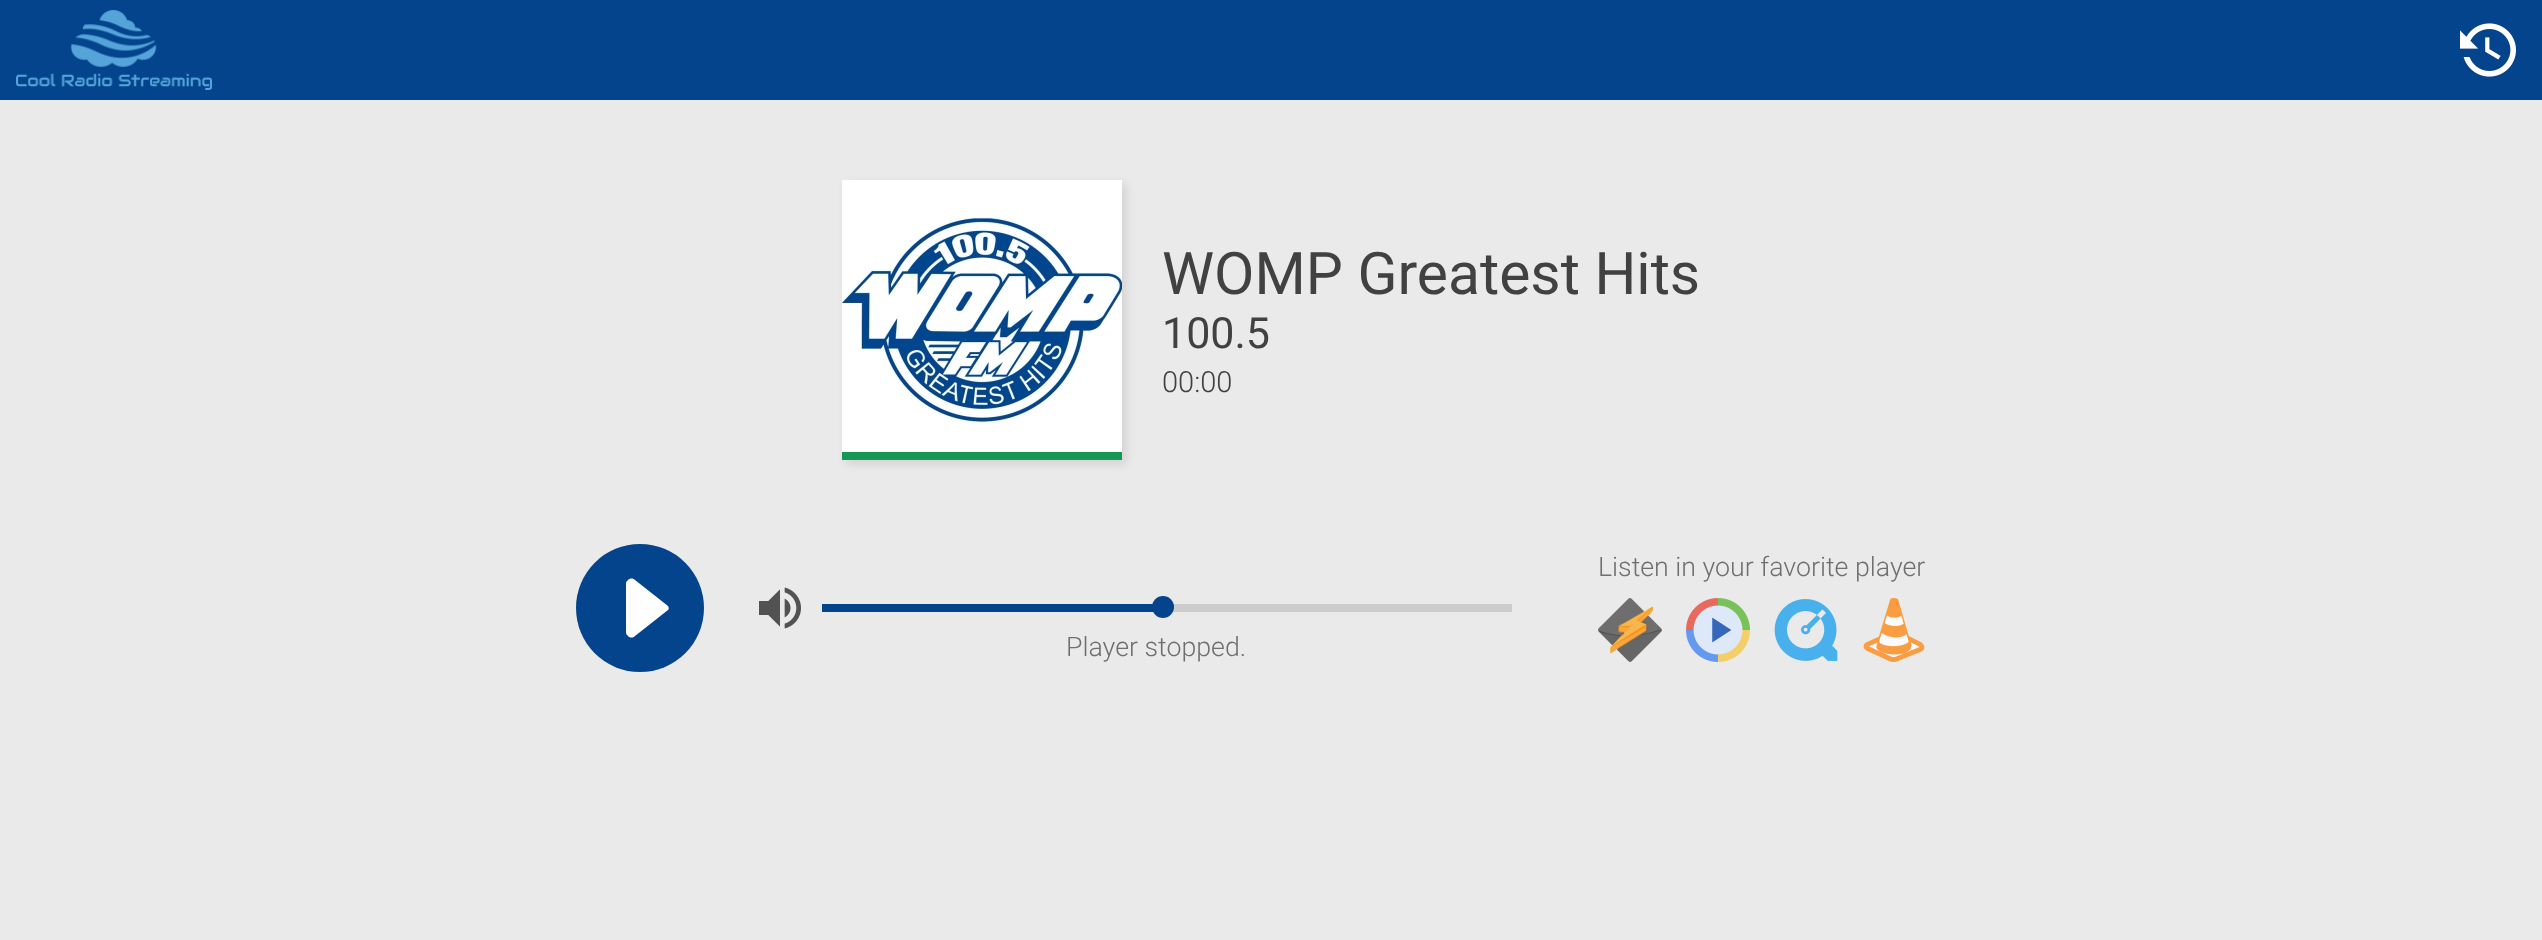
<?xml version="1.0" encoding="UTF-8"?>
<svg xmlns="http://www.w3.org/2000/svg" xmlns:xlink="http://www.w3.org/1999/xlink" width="2542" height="940">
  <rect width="100%" height="100%" fill="#eaeaea" />
  <rect width="2542" height="100" fill="#04448c" />
  <image x="16" y="10" width="196" height="80" xlink:href="image1.png" />
  <image x="2460" y="23" width="56" height="54" xlink:href="image2.png" />
  <rect x="846" y="184" width="280" height="280" fill="#000000" fill-opacity="0.1" filter="blur(5px)" />
  <image x="842" y="180" width="280" height="272" xlink:href="image3.png" />
  <rect x="842" y="452" width="280" height="8" fill="#159756" />
  <circle cx="640" cy="608" r="64" fill="#04448c" />
  <path d="M 668 606 l -33 -26 c -2 -2 -5 -2 -7 0 c -1 1 -2 2 -2 3 v 50 c 0 1 1 2 2 3 c 2 2 5 2 7 0 l 33 -26 c 1 -1 1 -2 0 -4 z" fill="#ffffff" />
  <image x="1598" y="598" width="64" height="64" xlink:href="image4.png" />
  <image x="1686" y="598" width="64" height="64" xlink:href="image5.png" />
  <image x="1774" y="599" width="64" height="62" xlink:href="image6.png" />
  <image x="1863" y="598" width="62" height="64" xlink:href="image7.png" />
  <image x="759" y="587" width="42" height="42" xlink:href="image8.png" />
  <rect x="1172" y="604" width="340" height="8" fill="#cccccc" />
  <rect x="822" y="604" width="332" height="8" fill="#04448c" />
  <circle cx="1163" cy="607" r="11" fill="#04448c" />
  <text x="1162" y="294" style="font-family: Roboto; font-size: 58.75px; fill: #414141">WOMP Greatest Hits</text>
  <text x="1162" y="348" style="font-family: Roboto; font-size: 43px; fill: #414141">100.5</text>
  <text x="1162" y="392" style="font-family: Roboto; font-size: 29px; font-weight: 300; fill: #414141">00:00</text>
  <text x="1598" y="576" style="font-family: Roboto; font-size: 26.75px; font-weight: 300; fill: #6f6f6f">Listen in your favorite player</text>
  <text x="1066" y="656" style="font-family: Roboto; font-size: 26.75px; font-weight: 300; fill: #6f6f6f">Player stopped.</text>
</svg>
